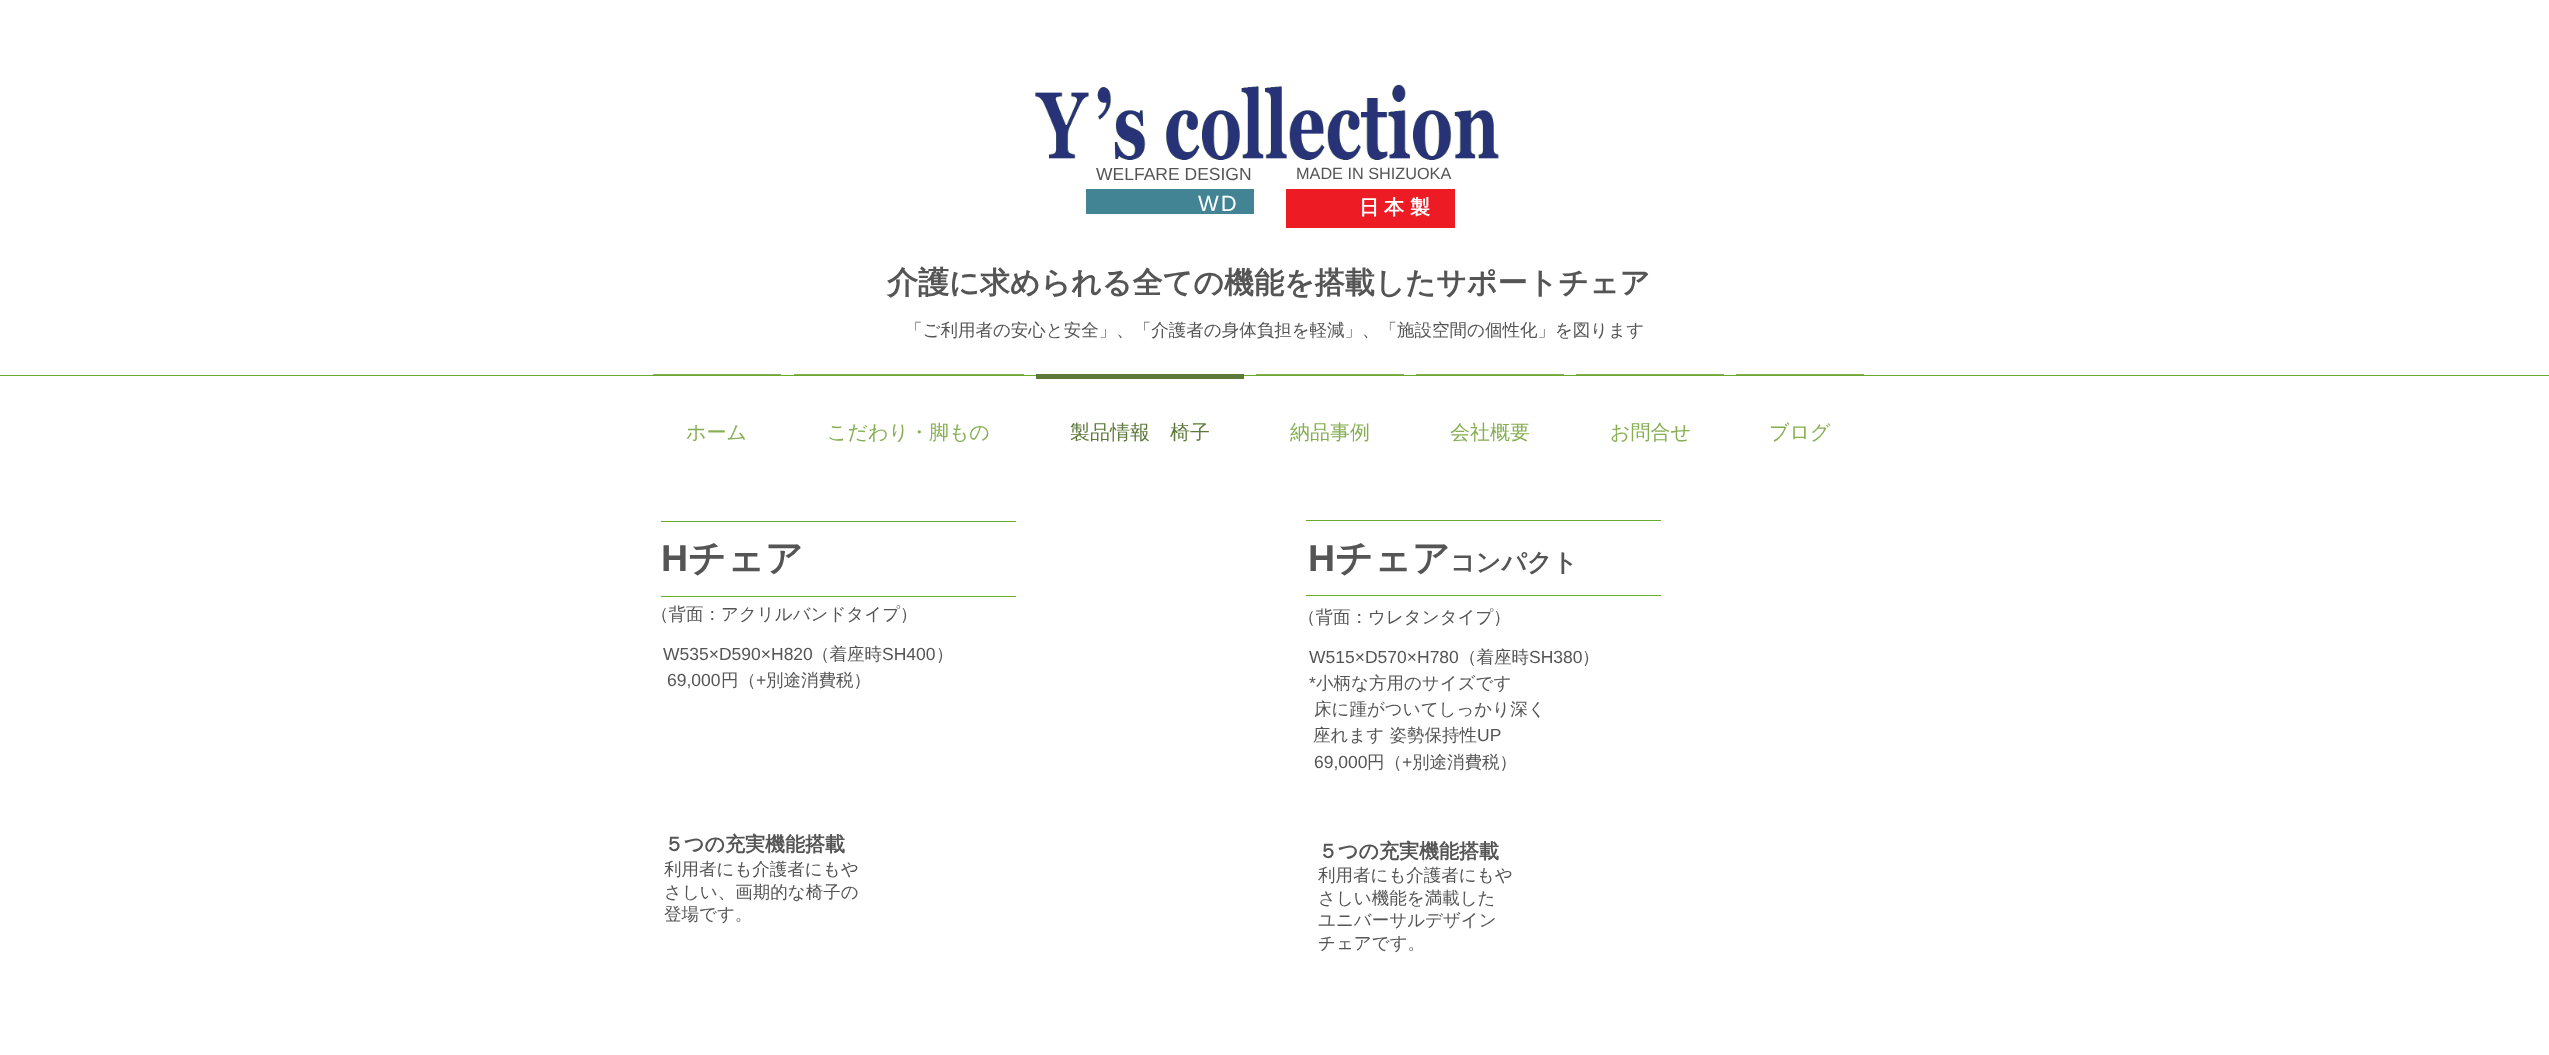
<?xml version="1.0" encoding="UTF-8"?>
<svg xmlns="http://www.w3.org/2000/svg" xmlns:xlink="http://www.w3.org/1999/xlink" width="2549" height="1055">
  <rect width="100%" height="100%" fill="#ffffff" />
  <image x="1035" y="84" width="464" height="76" xlink:href="image1.png" />
  <rect x="1086" y="189" width="168" height="25" fill="#428494" />
  <rect x="1286" y="189" width="169" height="39" fill="#ed1c24" />
  <rect y="375" width="2549" height="1" fill="#69ab2d" />
  <rect x="653" y="374" width="128" height="1" fill="#86af53" />
  <rect x="794" y="374" width="230" height="1" fill="#86af53" />
  <rect x="1036" y="374" width="208" height="5" fill="#5e7a3b" />
  <rect x="1256" y="374" width="148" height="1" fill="#86af53" />
  <rect x="1416" y="374" width="148" height="1" fill="#86af53" />
  <rect x="1576" y="374" width="148" height="1" fill="#86af53" />
  <rect x="1736" y="374" width="128" height="1" fill="#86af53" />
  <rect x="661" y="521" width="355" height="1" fill="#69ab2d" />
  <rect x="661" y="596" width="355" height="1" fill="#69ab2d" />
  <rect x="1306" y="520" width="355" height="1" fill="#69ab2d" />
  <rect x="1306" y="595" width="355" height="1" fill="#69ab2d" />
  <text x="1096" y="180" style="font-family: Liberation Sans; font-size: 17.5px; fill: #555555">WELFARE DESIGN</text>
  <text x="1296" y="179" style="font-family: Liberation Sans; font-size: 16.25px; fill: #555555">MADE IN SHIZUOKA</text>
  <text x="1198" y="211" style="font-family: Liberation Sans; font-size: 22px; letter-spacing: 2px; fill: #ffffff">WD</text>
  <text x="1359" y="214" style="font-family: WenQuanYi Zen Hei; font-size: 20px; font-weight: bold; fill: #ffffff">日</text>
  <text x="1384" y="214" style="font-family: WenQuanYi Zen Hei; font-size: 20px; font-weight: bold; fill: #ffffff">本</text>
  <text x="1410" y="214" style="font-family: WenQuanYi Zen Hei; font-size: 20px; font-weight: bold; fill: #ffffff">製</text>
  <text x="887" y="293" style="font-family: WenQuanYi Zen Hei; font-size: 31px; font-weight: bold; fill: #555555">介護</text>
  <text x="949" y="293" style="font-family: WenQuanYi Zen Hei; font-size: 30px; font-weight: bold; fill: #555555">に求められる全ての機能を搭載したサポートチェア</text>
  <text x="905" y="336" style="font-family: WenQuanYi Zen Hei; font-size: 17.5px; font-weight: 500; fill: #555555">「ご利用者の安心と安全」、「介護者の身体負担を軽減」、「施設空間の個性化」を図ります</text>
  <text x="686" y="439" style="font-family: WenQuanYi Zen Hei; font-size: 20px; font-weight: 500; fill: #86af53">ホーム</text>
  <text x="827" y="439" style="font-family: WenQuanYi Zen Hei; font-size: 20px; font-weight: 500; fill: #86af53">こだわり・脚もの</text>
  <text x="1070" y="439" style="font-family: WenQuanYi Zen Hei; font-size: 20px; font-weight: 500; fill: #5e7a3b">製品情報　椅子</text>
  <text x="1290" y="439" style="font-family: WenQuanYi Zen Hei; font-size: 20px; font-weight: 500; fill: #86af53">納品事例</text>
  <text x="1450" y="439" style="font-family: WenQuanYi Zen Hei; font-size: 20px; font-weight: 500; fill: #86af53">会社概要</text>
  <text x="1610" y="439" style="font-family: WenQuanYi Zen Hei; font-size: 20px; font-weight: 500; fill: #86af53">お問合せ</text>
  <text x="1769" y="439" style="font-family: WenQuanYi Zen Hei; font-size: 20px; font-weight: 500; fill: #86af53">ブログ</text>
  <text x="661" y="571" style="font-family: Liberation Sans; font-size: 37.5px; font-weight: bold; fill: #555555">H</text>
  <text x="688" y="571" style="font-family: WenQuanYi Zen Hei; font-size: 37.5px; font-weight: bold; fill: #555555">チェア</text>
  <text x="651" y="620" style="font-family: WenQuanYi Zen Hei; font-size: 17.5px; font-weight: 500; fill: #555555">（背面：アクリルバンドタイプ）</text>
  <text x="663" y="660" style="font-family: Liberation Sans; font-size: 17.5px; fill: #555555">W535×D590×H820</text>
  <text x="812" y="660" style="font-family: WenQuanYi Zen Hei; font-size: 17.5px; font-weight: 500; fill: #555555">（着座時</text>
  <text x="882" y="660" style="font-family: Liberation Sans; font-size: 17.5px; fill: #555555">SH400</text>
  <text x="936" y="660" style="font-family: WenQuanYi Zen Hei; font-size: 17.5px; font-weight: 500; fill: #555555">）</text>
  <text x="667" y="686" style="font-family: Liberation Sans; font-size: 17.5px; fill: #555555">69,000</text>
  <text x="721" y="686" style="font-family: WenQuanYi Zen Hei; font-size: 17.5px; font-weight: 500; fill: #555555">円（</text>
  <text x="756" y="686" style="font-family: Liberation Sans; font-size: 17.5px; fill: #555555">+</text>
  <text x="766" y="686" style="font-family: WenQuanYi Zen Hei; font-size: 17.5px; font-weight: 500; fill: #555555">別途消費税）</text>
  <text x="664" y="851" style="font-family: WenQuanYi Zen Hei; font-size: 20px; font-weight: bold; fill: #555555">５つの充実機能搭載</text>
  <text x="664" y="875" style="font-family: WenQuanYi Zen Hei; font-size: 17.5px; font-weight: 500; fill: #555555">利用者にも介護者にもや</text>
  <text x="664" y="898" style="font-family: WenQuanYi Zen Hei; font-size: 17.5px; font-weight: 500; fill: #555555">さしい、画期的な椅子の</text>
  <text x="664" y="920" style="font-family: WenQuanYi Zen Hei; font-size: 17.5px; font-weight: 500; fill: #555555">登場です。</text>
  <text x="1308" y="571" style="font-family: Liberation Sans; font-size: 37.5px; font-weight: bold; fill: #555555">H</text>
  <text x="1335" y="571" style="font-family: WenQuanYi Zen Hei; font-size: 37.5px; font-weight: bold; fill: #555555">チェア</text>
  <text x="1450" y="571" style="font-family: WenQuanYi Zen Hei; font-size: 25px; font-weight: bold; fill: #555555">コンパクト</text>
  <text x="1298" y="623" style="font-family: WenQuanYi Zen Hei; font-size: 17.5px; font-weight: 500; fill: #555555">（背面：ウレタンタイプ）</text>
  <text x="1309" y="663" style="font-family: Liberation Sans; font-size: 17.5px; fill: #555555">W515×D570×H780</text>
  <text x="1459" y="663" style="font-family: WenQuanYi Zen Hei; font-size: 17.5px; font-weight: 500; fill: #555555">（着座時</text>
  <text x="1529" y="663" style="font-family: Liberation Sans; font-size: 17.5px; fill: #555555">SH380</text>
  <text x="1582" y="663" style="font-family: WenQuanYi Zen Hei; font-size: 17.5px; font-weight: 500; fill: #555555">）</text>
  <text x="1309" y="689" style="font-family: Liberation Sans; font-size: 17.5px; fill: #555555">*</text>
  <text x="1316" y="689" style="font-family: WenQuanYi Zen Hei; font-size: 17.5px; font-weight: 500; fill: #555555">小柄な方用のサイズです</text>
  <text x="1314" y="715" style="font-family: WenQuanYi Zen Hei; font-size: 17.5px; font-weight: 500; fill: #555555">床に踵がついてしっかり深く</text>
  <text x="1313" y="741" style="font-family: WenQuanYi Zen Hei; font-size: 17.5px; font-weight: 500; fill: #555555">座れます 姿勢保持性</text>
  <text x="1477" y="741" style="font-family: Liberation Sans; font-size: 17.5px; fill: #555555">UP</text>
  <text x="1314" y="768" style="font-family: Liberation Sans; font-size: 17.5px; fill: #555555">69,000</text>
  <text x="1367" y="768" style="font-family: WenQuanYi Zen Hei; font-size: 17.5px; font-weight: 500; fill: #555555">円（</text>
  <text x="1402" y="768" style="font-family: Liberation Sans; font-size: 17.5px; fill: #555555">+</text>
  <text x="1412" y="768" style="font-family: WenQuanYi Zen Hei; font-size: 17.5px; font-weight: 500; fill: #555555">別途消費税）</text>
  <text x="1318" y="858" style="font-family: WenQuanYi Zen Hei; font-size: 20px; font-weight: bold; fill: #555555">５つの充実機能搭載</text>
  <text x="1318" y="881" style="font-family: WenQuanYi Zen Hei; font-size: 17.5px; font-weight: 500; fill: #555555">利用者にも介護者にもや</text>
  <text x="1318" y="904" style="font-family: WenQuanYi Zen Hei; font-size: 17.5px; font-weight: 500; fill: #555555">さしい機能を満載した</text>
  <text x="1318" y="926" style="font-family: WenQuanYi Zen Hei; font-size: 17.5px; font-weight: 500; fill: #555555">ユニバーサルデザイン</text>
  <text x="1318" y="949" style="font-family: WenQuanYi Zen Hei; font-size: 17.5px; font-weight: 500; fill: #555555">チェアです。</text>
</svg>
